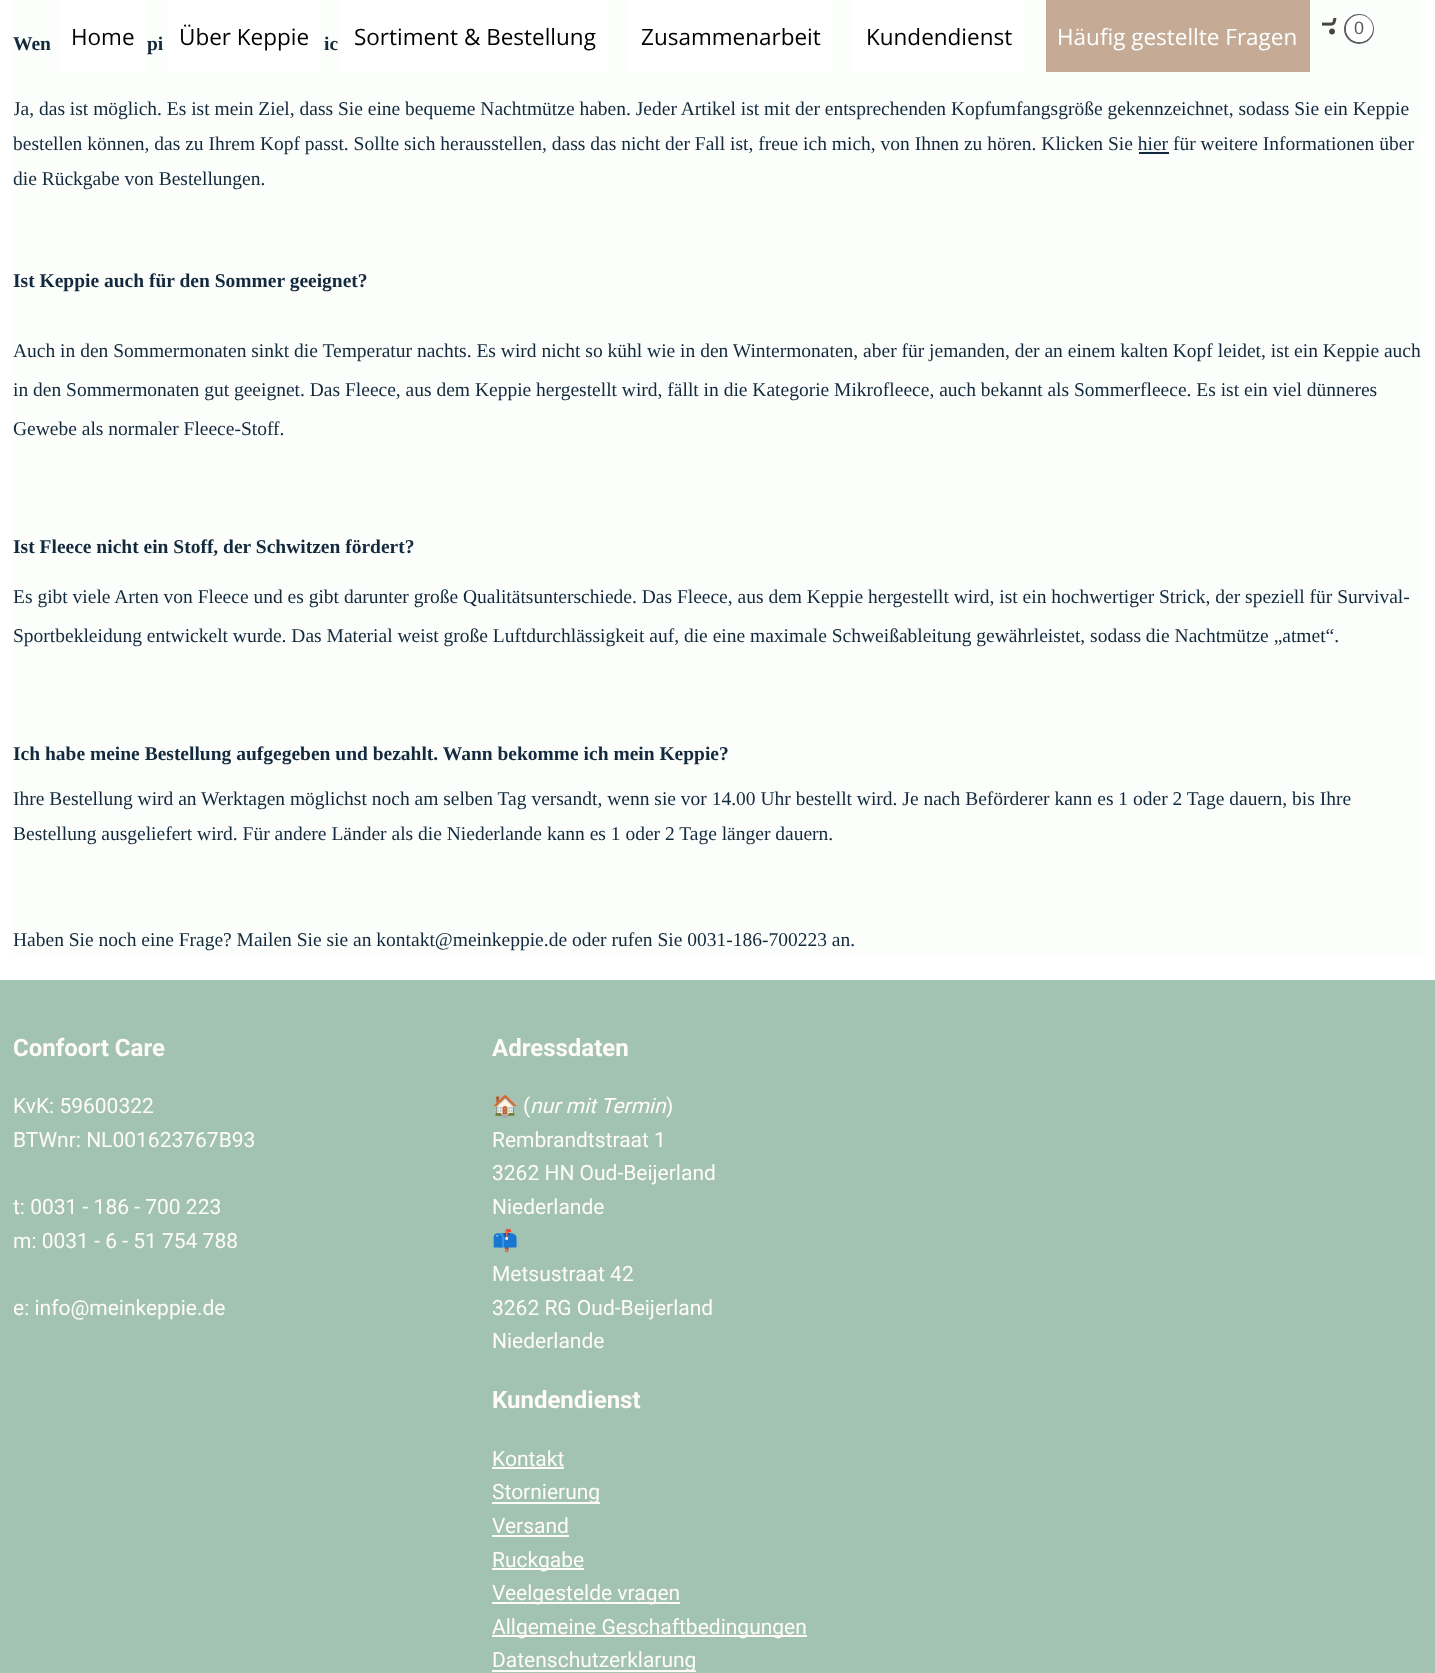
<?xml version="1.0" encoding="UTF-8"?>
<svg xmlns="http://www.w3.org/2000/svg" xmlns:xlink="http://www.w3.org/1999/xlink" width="1435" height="1673">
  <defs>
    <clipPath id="clip1"><rect x="14" width="1408" height="957" /></clipPath>
  </defs>
  <rect width="100%" height="100%" fill="#ffffff" />
  <rect x="14" width="1408" height="957" fill="#fcfefb" />
  <rect x="59" width="87" height="72" fill="#ffffff" />
  <rect x="167" width="154" height="72" fill="#ffffff" />
  <rect x="342" width="266" height="72" fill="#ffffff" />
  <rect x="629" width="204" height="72" fill="#ffffff" />
  <rect x="854" width="171" height="72" fill="#ffffff" />
  <rect x="1046" width="264" height="72" fill="#c5ab95" />
  <image x="1322" y="18" width="15" height="17" xlink:href="image1.png" />
  <circle cx="1359" cy="29" r="14" fill="none" stroke="#575b62" stroke-width="2" />
  <circle cx="1359.5" cy="28.5" r="13.5" fill="#ffffff" />
  <rect x="1139" y="152" width="30" height="2" fill="#13293d" />
  <rect y="980" width="1435" height="693" fill="#a2c3b1" />
  <rect x="492" y="1467" width="72" height="2" fill="#fffbf8" />
  <rect x="492" y="1502" width="108" height="2" fill="#fffbf8" />
  <rect x="492" y="1535" width="77" height="2" fill="#fffbf8" />
  <rect x="492" y="1568" width="92" height="2" fill="#fffbf8" />
  <rect x="492" y="1602" width="188" height="2" fill="#fffbf8" />
  <rect x="492" y="1635" width="315" height="2" fill="#fffbf8" />
  <rect x="492" y="1670" width="204" height="2" fill="#fffbf8" />
  <text x="71" y="45" style="font-family: Open Sans; font-size: 22.5px; fill: #000000">Home</text>
  <text x="179" y="45" style="font-family: Open Sans; font-size: 22.5px; fill: #000000">Über Keppie</text>
  <text x="354" y="45" style="font-family: Open Sans; font-size: 22.5px; fill: #000000">Sortiment &amp; Bestellung</text>
  <text x="641" y="45" style="font-family: Open Sans; font-size: 22.5px; fill: #000000">Zusammenarbeit</text>
  <text x="866" y="45" style="font-family: Open Sans; font-size: 22.5px; fill: #000000">Kundendienst</text>
  <text x="1057" y="45" style="font-family: Open Sans; font-size: 22.5px; fill: #fcffff">Häufig gestellte Fragen</text>
  <text x="1354" y="34" style="font-family: Liberation Sans; font-size: 18px; fill: #575b62">0</text>
  <text x="13" y="50" style="font-family: Liberation Serif; font-size: 19.5px; font-weight: bold; fill: #13293d">Wen</text>
  <text x="147" y="50" style="font-family: Liberation Serif; font-size: 19.5px; font-weight: bold; fill: #13293d">pi</text>
  <text x="324" y="50" style="font-family: Liberation Serif; font-size: 19.5px; font-weight: bold; fill: #13293d">ic</text>
  <g clip-path="url(#clip1)">
    <text x="13" y="115" style="font-family: Liberation Serif; font-size: 19.5px; fill: #13293d">Ja, das ist möglich. Es ist mein Ziel, dass Sie eine bequeme Nachtmütze haben. Jeder Artikel ist mit der entsprechenden Kopfumfangsgröße gekennzeichnet, sodass Sie ein Keppie</text>
  </g>
  <text x="13" y="150" style="font-family: Liberation Serif; font-size: 19.5px; fill: #13293d">bestellen können, das zu Ihrem Kopf passt. Sollte sich herausstellen, dass das nicht der Fall ist, freue ich mich, von Ihnen zu hören. Klicken Sie hier für weitere Informationen über</text>
  <text x="13" y="185" style="font-family: Liberation Serif; font-size: 19.5px; fill: #13293d">die Rückgabe von Bestellungen.</text>
  <text x="13" y="287" style="font-family: Liberation Serif; font-size: 19.5px; font-weight: bold; fill: #13293d">Ist Keppie auch für den Sommer geeignet?</text>
  <text x="13" y="357" style="font-family: Liberation Serif; font-size: 19.5px; fill: #13293d">Auch in den Sommermonaten sinkt die Temperatur nachts. Es wird nicht so kühl wie in den Wintermonaten, aber für jemanden, der an einem kalten Kopf leidet, ist ein Keppie auch</text>
  <text x="13" y="396" style="font-family: Liberation Serif; font-size: 19.5px; fill: #13293d">in den Sommermonaten gut geeignet. Das Fleece, aus dem Keppie hergestellt wird, fällt in die Kategorie Mikrofleece, auch bekannt als Sommerfleece. Es ist ein viel dünneres</text>
  <text x="13" y="435" style="font-family: Liberation Serif; font-size: 19.5px; fill: #13293d">Gewebe als normaler Fleece-Stoff.</text>
  <text x="13" y="553" style="font-family: Liberation Serif; font-size: 19.5px; font-weight: bold; fill: #13293d">Ist Fleece nicht ein Stoff, der Schwitzen fördert?</text>
  <text x="13" y="603" style="font-family: Liberation Serif; font-size: 19.5px; fill: #13293d">Es gibt viele Arten von Fleece und es gibt darunter große Qualitätsunterschiede. Das Fleece, aus dem Keppie hergestellt wird, ist ein hochwertiger Strick, der speziell für Survival-</text>
  <text x="13" y="642" style="font-family: Liberation Serif; font-size: 19.5px; fill: #13293d">Sportbekleidung entwickelt wurde. Das Material weist große Luftdurchlässigkeit auf, die eine maximale Schweißableitung gewährleistet, sodass die Nachtmütze „atmet“.</text>
  <text x="13" y="760" style="font-family: Liberation Serif; font-size: 19.5px; font-weight: bold; fill: #13293d">Ich habe meine Bestellung aufgegeben und bezahlt. Wann bekomme ich mein Keppie?</text>
  <text x="13" y="805" style="font-family: Liberation Serif; font-size: 19.5px; fill: #13293d">Ihre Bestellung wird an Werktagen möglichst noch am selben Tag versandt, wenn sie vor 14.00 Uhr bestellt wird. Je nach Beförderer kann es 1 oder 2 Tage dauern, bis Ihre</text>
  <text x="13" y="840" style="font-family: Liberation Serif; font-size: 19.5px; fill: #13293d">Bestellung ausgeliefert wird. Für andere Länder als die Niederlande kann es 1 oder 2 Tage länger dauern.</text>
  <text x="13" y="946" style="font-family: Liberation Serif; font-size: 19.5px; fill: #13293d">Haben Sie noch eine Frage? Mailen Sie sie an kontakt@meinkeppie.de oder rufen Sie 0031-186-700223 an.</text>
  <text x="13" y="1056" style="font-family: Roboto; font-size: 24px; font-weight: bold; fill: #fffbf8">Confoort Care</text>
  <text x="13" y="1113" style="font-family: Roboto; font-size: 21px; fill: #fffbf8">KvK: 59600322</text>
  <text x="13" y="1147" style="font-family: Roboto; font-size: 21px; fill: #fffbf8">BTWnr: NL001623767B93</text>
  <text x="13" y="1214" style="font-family: Roboto; font-size: 21px; fill: #fffbf8">t: 0031 - 186 - 700 223</text>
  <text x="13" y="1248" style="font-family: Roboto; font-size: 21px; fill: #fffbf8">m: 0031 - 6 - 51 754 788</text>
  <text x="13" y="1315" style="font-family: Roboto; font-size: 21px; fill: #fffbf8">e: info@meinkeppie.de</text>
  <text x="492" y="1056" style="font-family: Roboto; font-size: 24px; font-weight: bold; fill: #fffbf8">Adressdaten</text>
  <text x="492" y="1113" style="font-family: Noto Color Emoji; font-size: 21px; fill: #fffbf8">🏠</text>
  <text x="523" y="1113" style="font-family: Roboto; font-size: 21px; fill: #fffbf8">(</text>
  <text x="530" y="1113" style="font-family: Roboto; font-size: 21px; font-style: italic; fill: #fffbf8">nur mit Termin</text>
  <text x="666" y="1113" style="font-family: Roboto; font-size: 21px; fill: #fffbf8">)</text>
  <text x="492" y="1147" style="font-family: Roboto; font-size: 21px; fill: #fffbf8">Rembrandtstraat 1</text>
  <text x="492" y="1180" style="font-family: Roboto; font-size: 21px; fill: #fffbf8">3262 HN Oud-Beijerland</text>
  <text x="492" y="1214" style="font-family: Roboto; font-size: 21px; fill: #fffbf8">Niederlande</text>
  <text x="492" y="1248" style="font-family: Noto Color Emoji; font-size: 21px; fill: #fffbf8">📫</text>
  <text x="492" y="1281" style="font-family: Roboto; font-size: 21px; fill: #fffbf8">Metsustraat 42</text>
  <text x="492" y="1315" style="font-family: Roboto; font-size: 21px; fill: #fffbf8">3262 RG Oud-Beijerland</text>
  <text x="492" y="1348" style="font-family: Roboto; font-size: 21px; fill: #fffbf8">Niederlande</text>
  <text x="492" y="1408" style="font-family: Roboto; font-size: 24px; font-weight: bold; fill: #fffbf8">Kundendienst</text>
  <text x="492" y="1466" style="font-family: Roboto; font-size: 21px; fill: #fffbf8">Kontakt</text>
  <text x="492" y="1499" style="font-family: Roboto; font-size: 21px; fill: #fffbf8">Stornierung</text>
  <text x="492" y="1533" style="font-family: Roboto; font-size: 21px; fill: #fffbf8">Versand</text>
  <text x="492" y="1567" style="font-family: Roboto; font-size: 21px; fill: #fffbf8">Ruckgabe</text>
  <text x="492" y="1600" style="font-family: Roboto; font-size: 21px; fill: #fffbf8">Veelgestelde vragen</text>
  <text x="492" y="1634" style="font-family: Roboto; font-size: 21px; fill: #fffbf8">Allgemeine Geschaftbedingungen</text>
  <text x="492" y="1667" style="font-family: Roboto; font-size: 21px; fill: #fffbf8">Datenschutzerklarung</text>
</svg>
